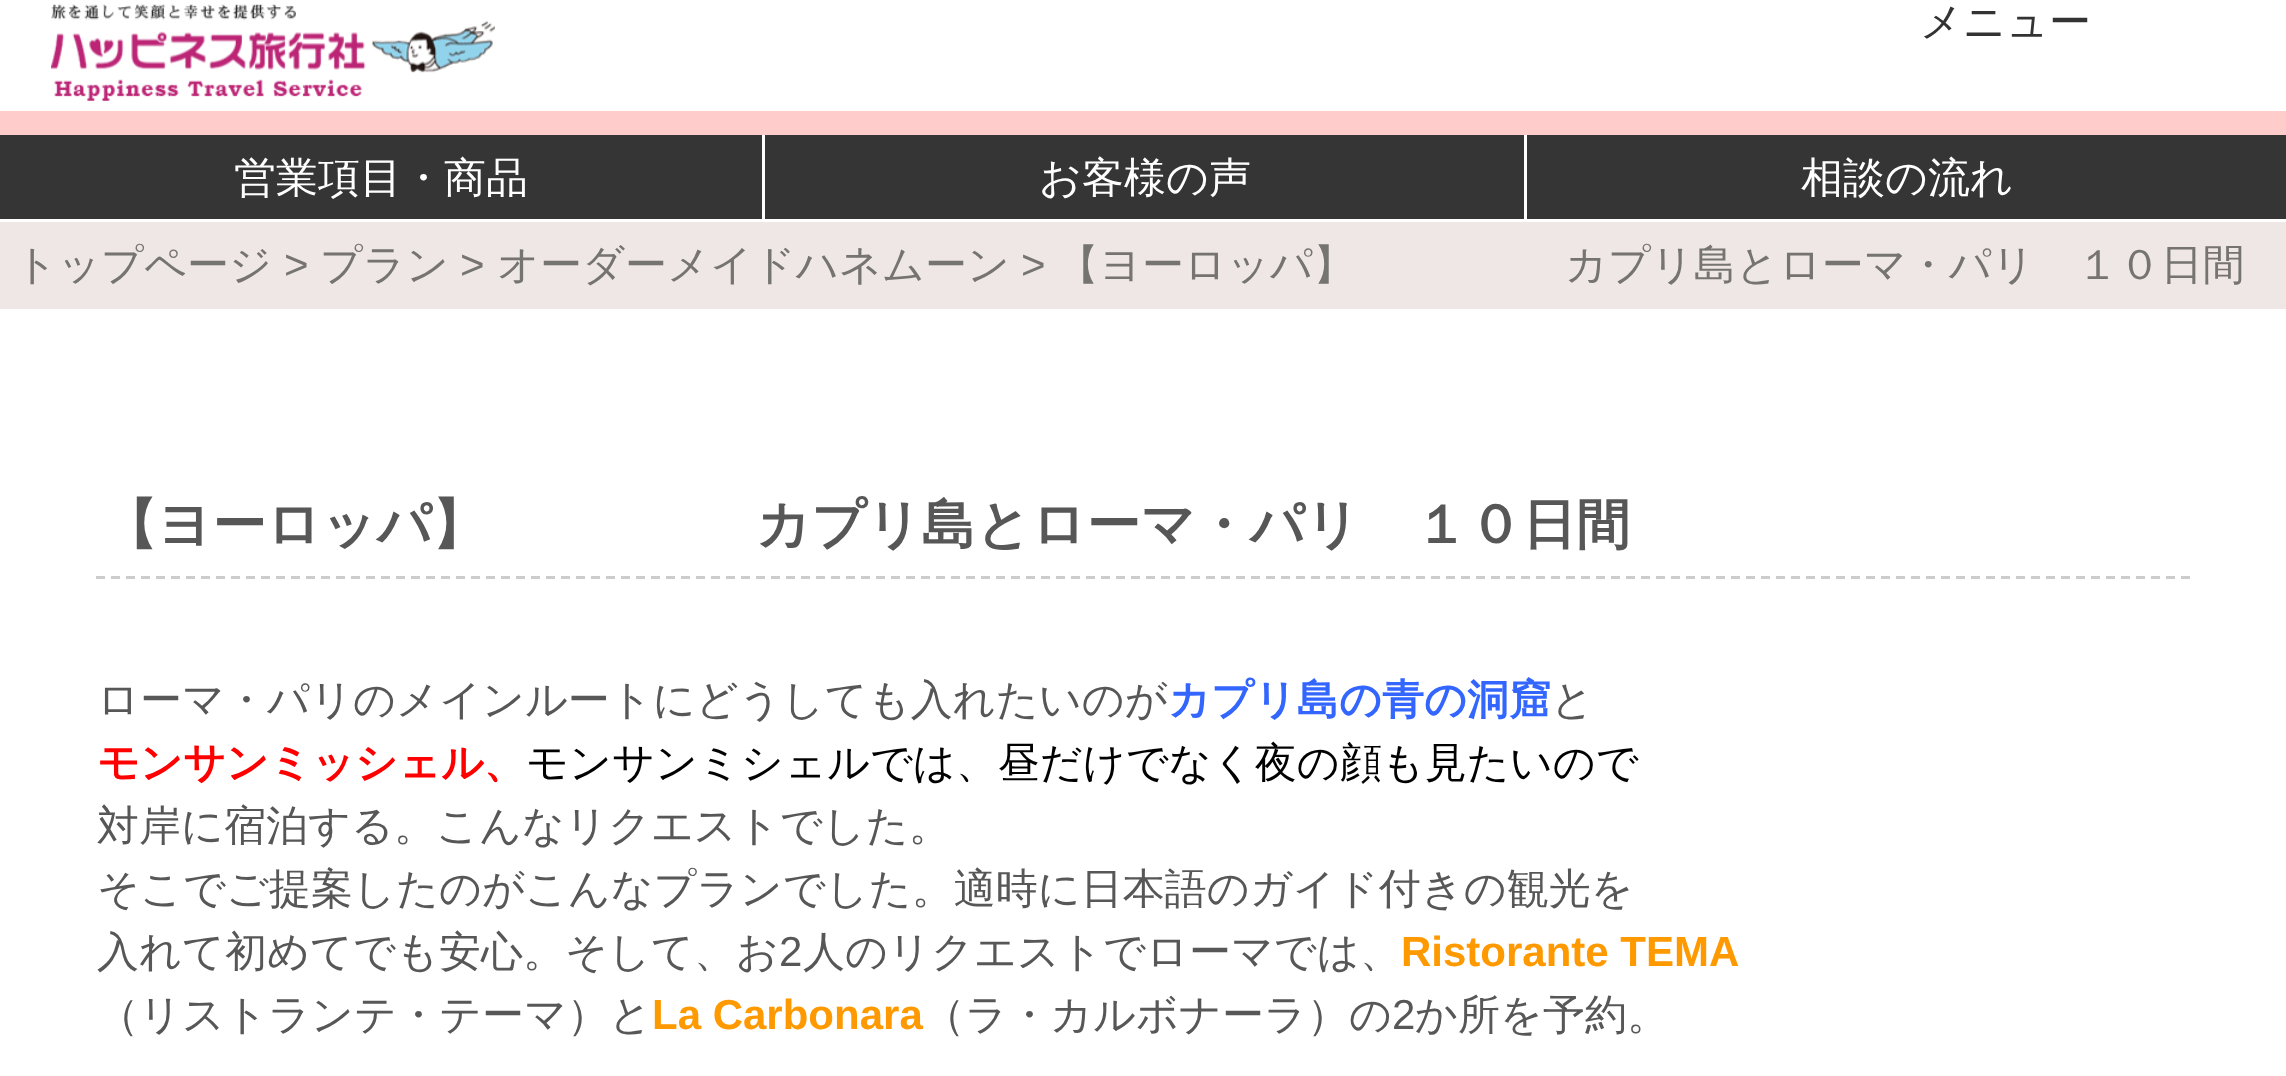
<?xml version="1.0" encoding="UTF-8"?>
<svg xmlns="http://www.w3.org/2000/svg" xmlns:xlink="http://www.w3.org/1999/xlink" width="2286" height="1076">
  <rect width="100%" height="100%" fill="#ffffff" />
  <image x="51" y="4" width="444" height="97" xlink:href="image1.png" />
  <rect y="111" width="2286" height="24" fill="#ffcccc" />
  <rect y="135" width="2286" height="84" fill="#353535" />
  <rect x="762" y="135" width="3" height="87" fill="#ffffff" />
  <rect x="1524" y="135" width="3" height="87" fill="#ffffff" />
  <rect y="222" width="2286" height="87" fill="#efe6e6" />
  <path d="M 96 577.5 h 2094" fill="none" stroke="#cccccc" stroke-width="3" stroke-dasharray="9 6" />
  <text x="1920" y="36" style="font-family: WenQuanYi Zen Hei; font-size: 42px; font-weight: 500; fill: #333333">メニュー</text>
  <text x="234" y="192" style="font-family: WenQuanYi Zen Hei; font-size: 42px; font-weight: 500; fill: #ffffff">営業項目・商品</text>
  <text x="1039" y="192" style="font-family: WenQuanYi Zen Hei; font-size: 42px; font-weight: 500; fill: #ffffff">お客様の声</text>
  <text x="1801" y="192" style="font-family: WenQuanYi Zen Hei; font-size: 42px; font-weight: 500; fill: #ffffff">相談の流れ</text>
  <text x="15" y="279" style="font-family: WenQuanYi Zen Hei; font-size: 42px; font-weight: 500; fill: #757471">トップページ</text>
  <text x="284" y="279" style="font-family: Liberation Sans; font-size: 42px; fill: #757471">&gt;</text>
  <text x="320" y="279" style="font-family: WenQuanYi Zen Hei; font-size: 42px; font-weight: 500; fill: #757471">プラン</text>
  <text x="460" y="279" style="font-family: Liberation Sans; font-size: 42px; fill: #757471">&gt;</text>
  <text x="497" y="279" style="font-family: WenQuanYi Zen Hei; font-size: 42px; font-weight: 500; fill: #757471">オーダーメイドハネムーン</text>
  <text x="1021" y="279" style="font-family: Liberation Sans; font-size: 42px; fill: #757471">&gt;</text>
  <text x="1057" y="279" style="font-family: WenQuanYi Zen Hei; font-size: 42px; font-weight: 500; fill: #757471">【ヨーロッパ】　　　　　カプリ島とローマ・パリ　１０日間</text>
  <text x="103" y="543" style="font-family: WenQuanYi Zen Hei; font-size: 54px; font-weight: bold; fill: #575757">【ヨーロッパ】　　　　　カプリ島とローマ・パリ　１０日間</text>
  <text x="97" y="714" style="font-family: WenQuanYi Zen Hei; font-size: 42px; font-weight: 500; fill: #575757">ローマ・パリのメインルートにどうしても入れたいのが</text>
  <text x="1168" y="714" style="font-family: WenQuanYi Zen Hei; font-size: 42px; font-weight: bold; fill: #3366ff">カプリ島の青の洞窟</text>
  <text x="1551" y="714" style="font-family: WenQuanYi Zen Hei; font-size: 42px; font-weight: 500; fill: #575757">と</text>
  <text x="97" y="777" style="font-family: WenQuanYi Zen Hei; font-size: 42px; font-weight: bold; fill: #ff0000">モンサンミッシェル、</text>
  <text x="526" y="777" style="font-family: WenQuanYi Zen Hei; font-size: 42px; font-weight: 500; fill: #000000">モンサンミシェルでは、昼だけでなく夜の顔も見たいので</text>
  <text x="97" y="840" style="font-family: WenQuanYi Zen Hei; font-size: 42px; font-weight: 500; fill: #575757">対岸に宿泊する。こんなリクエストでした。</text>
  <text x="97" y="903" style="font-family: WenQuanYi Zen Hei; font-size: 42px; font-weight: 500; fill: #575757">そこでご提案したのがこんなプランでした。適時に日本語のガイド付きの観光を</text>
  <text x="97" y="966" style="font-family: WenQuanYi Zen Hei; font-size: 42px; font-weight: 500; fill: #575757">入れて初めてでも安心。そして、お</text>
  <text x="779" y="966" style="font-family: Liberation Sans; font-size: 42px; fill: #575757">2</text>
  <text x="803" y="966" style="font-family: WenQuanYi Zen Hei; font-size: 42px; font-weight: 500; fill: #575757">人のリクエストでローマでは、</text>
  <text x="1401" y="966" style="font-family: Liberation Sans; font-size: 42px; font-weight: bold; fill: #ff9900">Ristorante TEMA</text>
  <text x="97" y="1029" style="font-family: WenQuanYi Zen Hei; font-size: 42px; font-weight: 500; fill: #575757">（リストランテ・テーマ）と</text>
  <text x="652" y="1029" style="font-family: Liberation Sans; font-size: 42px; font-weight: bold; fill: #ff9900">La Carbonara</text>
  <text x="923" y="1029" style="font-family: WenQuanYi Zen Hei; font-size: 42px; font-weight: 500; fill: #575757">（ラ・カルボナーラ）の</text>
  <text x="1392" y="1029" style="font-family: Liberation Sans; font-size: 42px; fill: #575757">2</text>
  <text x="1415" y="1029" style="font-family: WenQuanYi Zen Hei; font-size: 42px; font-weight: 500; fill: #575757">か所を予約。</text>
</svg>
